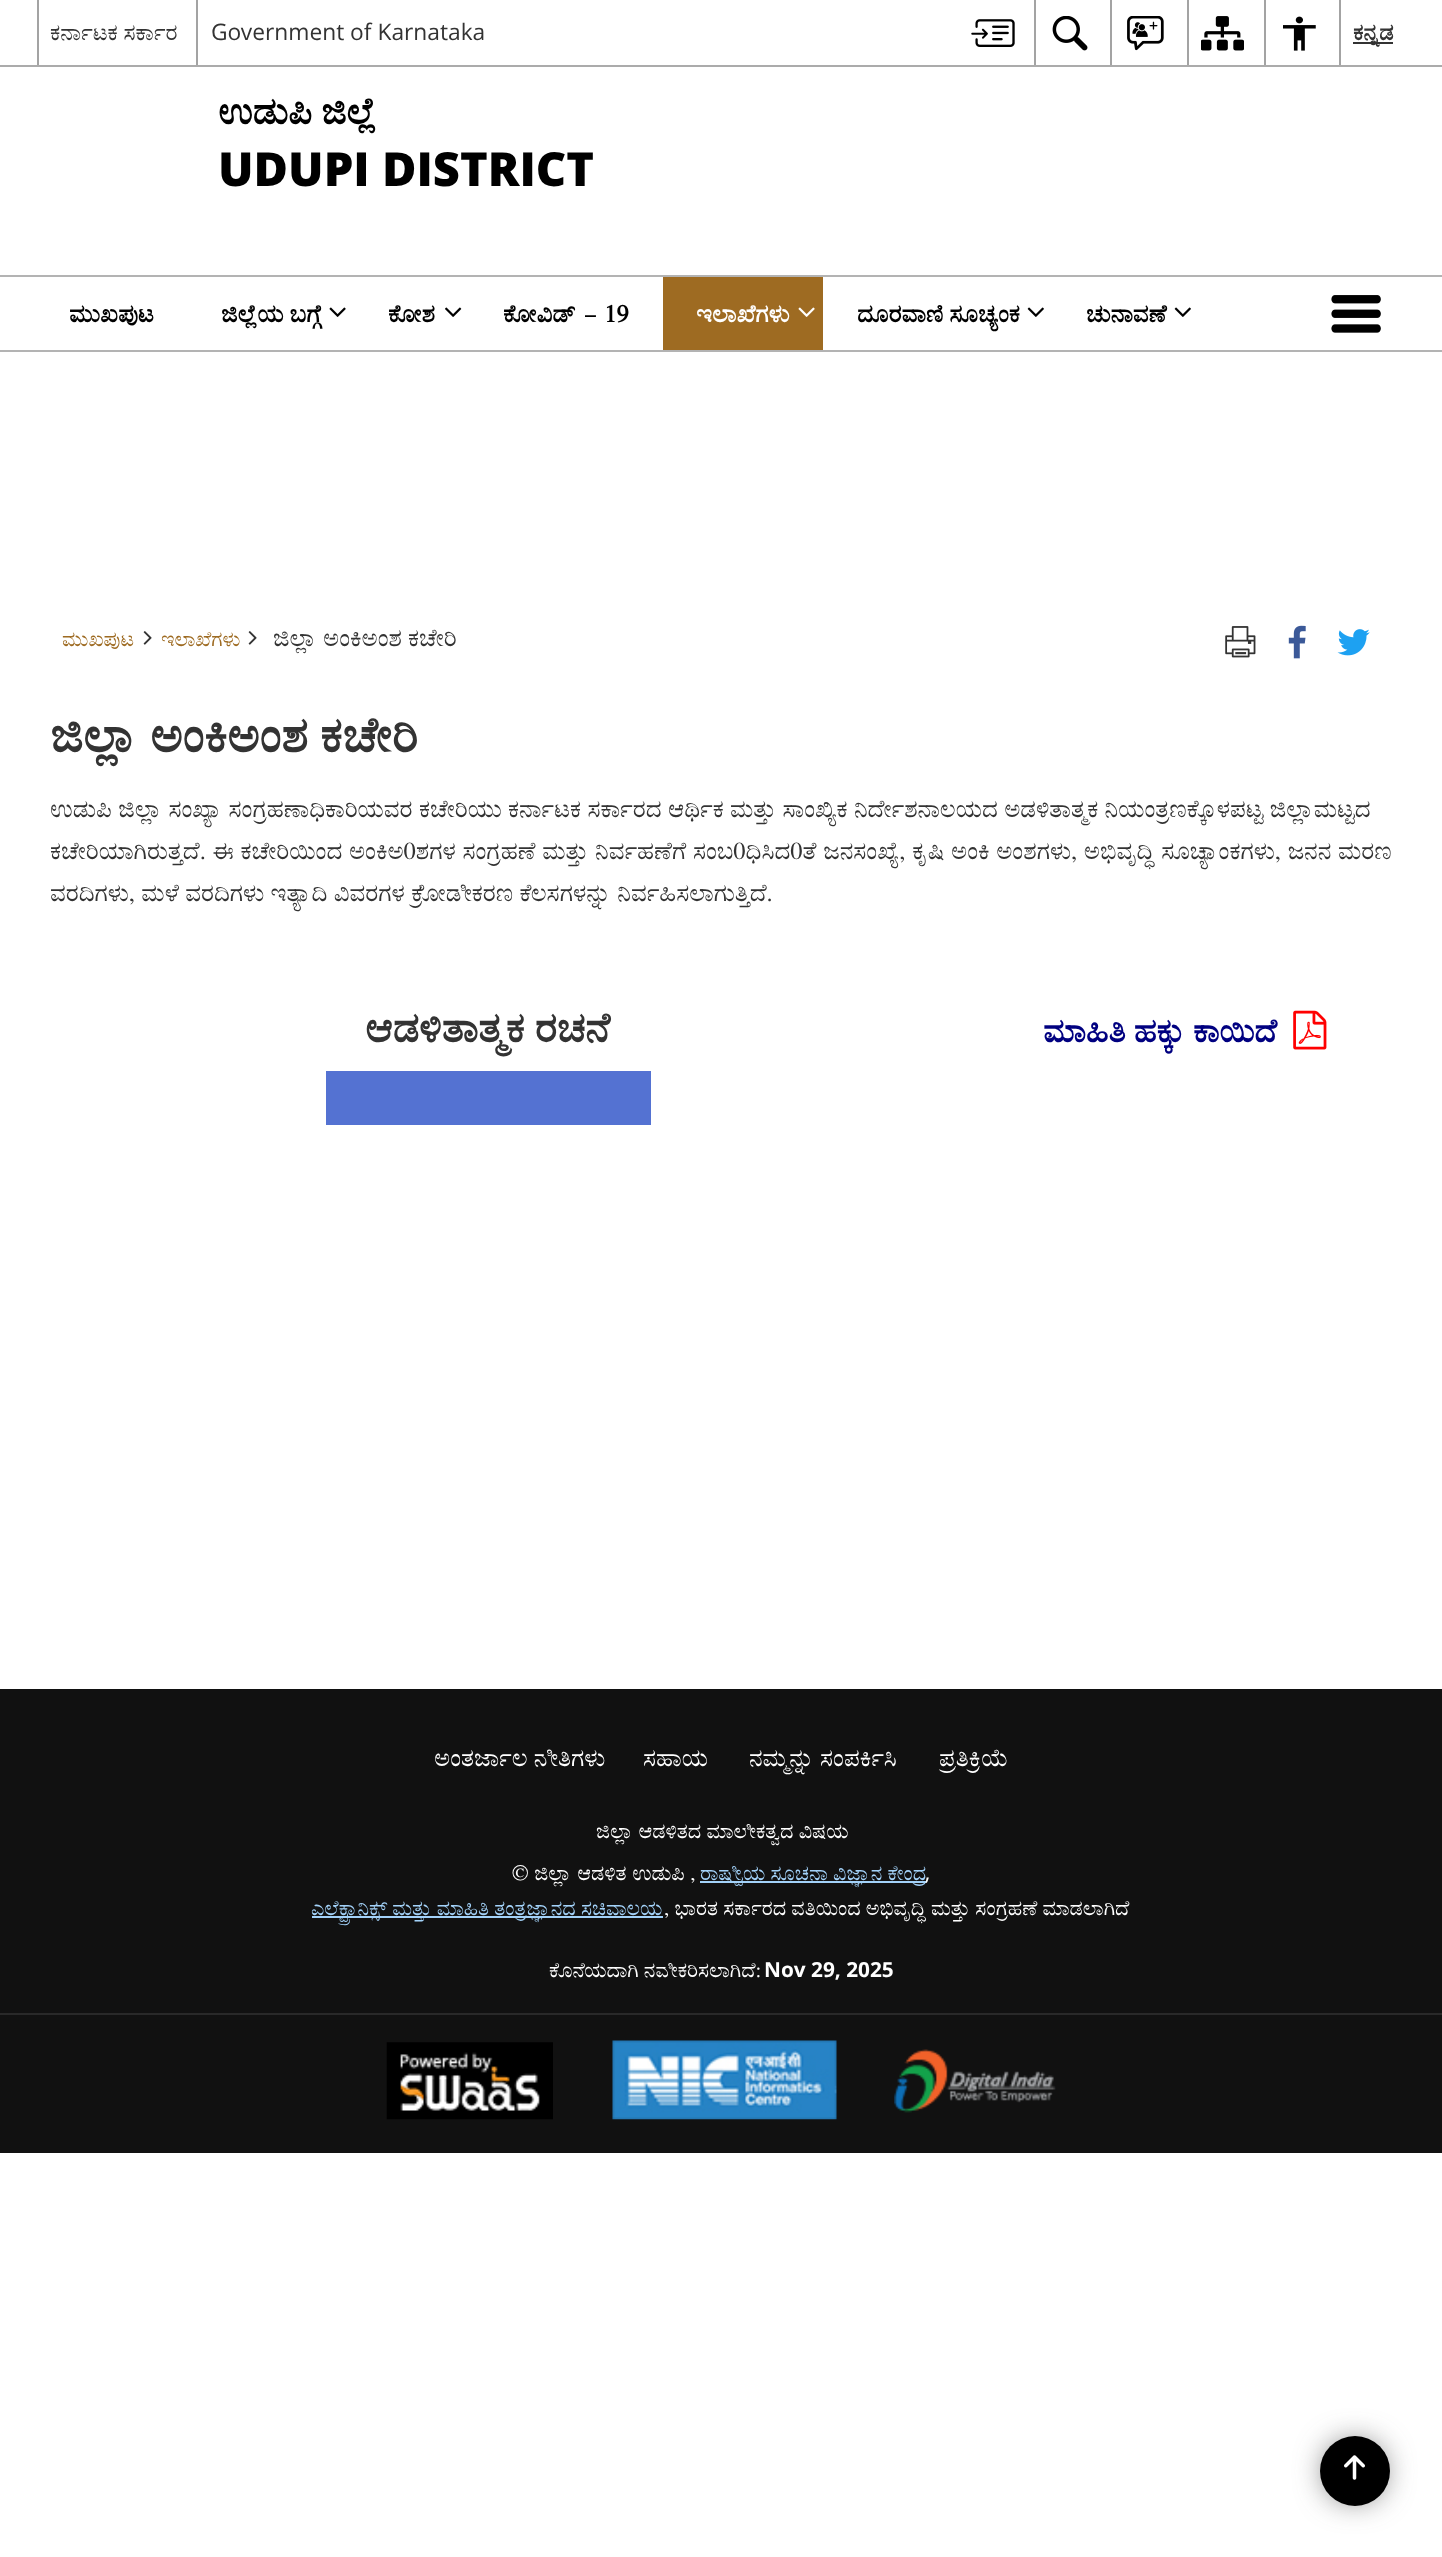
<?xml version="1.0" encoding="UTF-8"?>
<svg xmlns="http://www.w3.org/2000/svg" xmlns:xlink="http://www.w3.org/1999/xlink" width="1442" height="2557">
  <rect width="100%" height="100%" fill="#ffffff" />
  <rect y="65" width="1442" height="2" fill="#ababab" />
  <rect x="37" width="2" height="65" fill="#a3a3a3" />
  <rect x="196" width="2" height="65" fill="#a3a3a3" />
  <image x="971" y="19" width="44" height="28" xlink:href="image1.png" />
  <rect x="1034" width="2" height="65" fill="#a3a3a3" />
  <image x="1052" y="16" width="36" height="35" xlink:href="image2.png" />
  <rect x="1110" width="2" height="65" fill="#a3a3a3" />
  <image x="1127" y="16" width="37" height="35" xlink:href="image3.png" />
  <rect x="1187" width="2" height="65" fill="#a3a3a3" />
  <image x="1201" y="16" width="43" height="35" xlink:href="image4.png" />
  <rect x="1264" width="2" height="65" fill="#a3a3a3" />
  <image x="1283" y="16" width="33" height="35" xlink:href="image5.png" />
  <rect x="1339" width="2" height="65" fill="#a3a3a3" />
  <rect x="1353" y="42" width="40" height="2" fill="#333333" />
  <rect y="275" width="1442" height="2" fill="#b3b3b3" />
  <rect y="350" width="1442" height="2" fill="#b3b3b3" />
  <image x="329" y="307" width="17" height="10" xlink:href="image6.png" />
  <image x="445" y="307" width="17" height="10" xlink:href="image7.png" />
  <rect x="663" y="277" width="160" height="73" fill="#9e6b22" />
  <image x="798" y="307" width="17" height="10" xlink:href="image8.png" />
  <image x="1027" y="307" width="17" height="10" xlink:href="image9.png" />
  <image x="1174" y="307" width="17" height="10" xlink:href="image9.png" />
  <image x="1331" y="295" width="50" height="38" xlink:href="image10.png" />
  <image x="143" y="631" width="9" height="14" xlink:href="image11.png" />
  <image x="248" y="631" width="9" height="14" xlink:href="image11.png" />
  <image x="1225" y="626" width="31" height="32" xlink:href="image12.png" />
  <image x="1288" y="625" width="18" height="34" xlink:href="image13.png" />
  <image x="1337" y="629" width="33" height="27" xlink:href="image14.png" />
  <rect x="326" y="1071" width="325" height="54" fill="#5472d2" />
  <image x="1293" y="1010" width="34" height="40" xlink:href="image15.png" />
  <rect y="1689" width="1442" height="464" fill="#111111" />
  <rect x="700" y="1881" width="226" height="2" fill="#a3d2f9" />
  <rect x="312" y="1916" width="351" height="2" fill="#a3d2f9" />
  <rect y="2013" width="1442" height="2" fill="#292929" />
  <image x="386" y="2042" width="167" height="78" xlink:href="image16.png" />
  <image x="612" y="2040" width="225" height="80" xlink:href="image17.png" />
  <image x="894" y="2049" width="162" height="64" xlink:href="image18.png" />
  <rect x="1328" y="2445" width="53" height="52" rx="26" fill="#3c3c3c" filter="blur(16.5px)" />
  <circle cx="1355" cy="2471" r="35" fill="#000000" />
  <image x="1344" y="2455" width="21" height="25" xlink:href="image19.png" />
  <text x="50" y="40" style="font-family: FreeSerif; font-size: 22.75px; fill: #333333">ಕರ್ನಾಟಕ ಸರ್ಕಾರ</text>
  <text x="211" y="40" style="font-family: Open Sans; font-size: 22.75px; fill: #333333">Government of Karnataka</text>
  <text x="1353" y="40" style="font-family: FreeSerif; font-size: 22.75px; font-weight: bold; fill: #333333">ಕನ್ನಡ</text>
  <text x="218" y="124" style="font-family: FreeSerif; font-size: 37.25px; font-weight: bold; fill: #000000">ಉಡುಪಿ ಜಿಲ್ಲೆ</text>
  <text x="218" y="186" style="font-family: Open Sans; font-size: 47px; font-weight: 800; fill: #000000">UDUPI DISTRICT</text>
  <text x="69" y="322" style="font-family: FreeSerif; font-size: 24.5px; font-weight: bold; fill: #000000">ಮುಖಪುಟ</text>
  <text x="221" y="322" style="font-family: FreeSerif; font-size: 24.5px; font-weight: bold; fill: #000000">ಜಿಲ್ಲೆಯ ಬಗ್ಗೆ</text>
  <text x="388" y="322" style="font-family: FreeSerif; font-size: 24.5px; font-weight: bold; fill: #000000">ಕೋಶ</text>
  <text x="503" y="322" word-spacing="2" style="font-family: FreeSerif; font-size: 24.5px; font-weight: bold; fill: #000000">ಕೋವಿಡ್ – 19</text>
  <text x="696" y="322" style="font-family: FreeSerif; font-size: 24.5px; font-weight: bold; fill: #ffffff">ಇಲಾಖೆಗಳು</text>
  <text x="857" y="322" style="font-family: FreeSerif; font-size: 24.5px; font-weight: bold; fill: #000000">ದೂರವಾಣಿ ಸೂಚ್ಯಂಕ</text>
  <text x="1086" y="322" style="font-family: FreeSerif; font-size: 24.5px; font-weight: bold; fill: #000000">ಚುನಾವಣೆ</text>
  <text x="62" y="646" style="font-family: FreeSerif; font-size: 20.8px; fill: #9e6b22">ಮುಖಪುಟ</text>
  <text x="161" y="646" style="font-family: FreeSerif; font-size: 20.8px; fill: #9e6b22">ಇಲಾಖೆಗಳು</text>
  <text x="273" y="646" style="font-family: FreeSerif; font-size: 24.5px; fill: #333333">ಜಿಲ್ಲಾ ಅಂಕಿಅಂಶ ಕಚೇರಿ</text>
  <text x="50" y="752" style="font-family: FreeSerif; font-size: 49px; font-weight: bold; fill: #333333">ಜಿಲ್ಲಾ ಅಂಕಿಅಂಶ ಕಚೇರಿ</text>
  <text x="50" y="817" word-spacing="0.25" style="font-family: FreeSerif; font-size: 24.5px; fill: #333333">ಉಡುಪಿ ಜಿಲ್ಲಾ ಸಂಖ್ಯಾ ಸಂಗ್ರಹಣಾಧಿಕಾರಿಯವರ ಕಚೇರಿಯು ಕರ್ನಾಟಕ ಸರ್ಕಾರದ ಆರ್ಥಿಕ ಮತ್ತು ಸಾಂಖ್ಯಿಕ ನಿರ್ದೇಶನಾಲಯದ ಅಡಳಿತಾತ್ಮಕ ನಿಯಂತ್ರಣಕ್ಕೊಳಪಟ್ಟ ಜಿಲ್ಲಾಮಟ್ಟದ</text>
  <text x="50" y="859" word-spacing="0.6" style="font-family: FreeSerif; font-size: 24.5px; fill: #333333">ಕಚೇರಿಯಾಗಿರುತ್ತದೆ. ಈ ಕಚೇರಿಯಿಂದ ಅಂಕಿಅ0ಶಗಳ ಸಂಗ್ರಹಣೆ ಮತ್ತು ನಿರ್ವಹಣೆಗೆ ಸಂಬ0ಧಿಸಿದ0ತೆ ಜನಸಂಖ್ಯೆ, ಕೃಷಿ ಅಂಕಿ ಅಂಶಗಳು, ಅಭಿವೃದ್ಧಿ ಸೂಚ್ಯಾಂಕಗಳು, ಜನನ ಮರಣ</text>
  <text x="50" y="901" word-spacing="0.25" style="font-family: FreeSerif; font-size: 24.5px; fill: #333333">ವರದಿಗಳು, ಮಳೆ ವರದಿಗಳು ಇತ್ಯಾದಿ ವಿವರಗಳ ಕ್ರೋಡೀಕರಣ ಕೆಲಸಗಳನ್ನು ನಿರ್ವಹಿಸಲಾಗುತ್ತಿದೆ.</text>
  <text x="365" y="1042" style="font-family: FreeSerif; font-size: 41.5px; font-weight: bold; fill: #333333">ಆಡಳಿತಾತ್ಮಕ ರಚನೆ</text>
  <text x="1043" y="1042" style="font-family: FreeSerif; font-size: 32.75px; font-weight: bold; fill: #000080">ಮಾಹಿತಿ ಹಕ್ಕು ಕಾಯಿದೆ</text>
  <text x="434" y="1766" style="font-family: FreeSerif; font-size: 24.5px; fill: #ffffff">ಅಂತರ್ಜಾಲ ನೀತಿಗಳು</text>
  <text x="643" y="1766" style="font-family: FreeSerif; font-size: 24.5px; fill: #ffffff">ಸಹಾಯ</text>
  <text x="749" y="1766" style="font-family: FreeSerif; font-size: 24.5px; fill: #ffffff">ನಮ್ಮನ್ನು ಸಂಪರ್ಕಿಸಿ</text>
  <text x="939" y="1766" style="font-family: FreeSerif; font-size: 24.5px; fill: #ffffff">ಪ್ರತಿಕ್ರಿಯೆ</text>
  <text x="596" y="1838" style="font-family: FreeSerif; font-size: 20.8px; fill: #ffffff">ಜಿಲ್ಲಾ ಆಡಳಿತದ ಮಾಲೀಕತ್ವದ ವಿಷಯ</text>
  <text x="512" y="1880" word-spacing="0.5" style="font-family: FreeSerif; font-size: 20.8px; fill: #ffffff">© ಜಿಲ್ಲಾ ಆಡಳಿತ ಉಡುಪಿ ,</text>
  <text x="700" y="1880" style="font-family: FreeSerif; font-size: 20.8px; fill: #a3d2f9">ರಾಷ್ಟೀಯ ಸೂಚನಾ ವಿಜ್ಞಾನ ಕೇಂದ್ರ</text>
  <text x="925" y="1880" style="font-family: Open Sans; font-size: 20.8px; fill: #ffffff">,</text>
  <text x="311" y="1915" style="font-family: FreeSerif; font-size: 20.8px; fill: #a3d2f9">ಎಲೆಕ್ಟ್ರಾನಿಕ್ಸ್ ಮತ್ತು ಮಾಹಿತಿ ತಂತ್ರಜ್ಞಾನದ ಸಚಿವಾಲಯ</text>
  <text x="664" y="1915" style="font-family: FreeSerif; font-size: 20.8px; fill: #ffffff">, ಭಾರತ ಸರ್ಕಾರದ ವತಿಯಿಂದ ಅಭಿವೃದ್ಧಿ ಮತ್ತು ಸಂಗ್ರಹಣೆ ಮಾಡಲಾಗಿದೆ</text>
  <text x="549" y="1977" style="font-family: FreeSerif; font-size: 20.8px; fill: #ffffff">ಕೊನೆಯದಾಗಿ ನವೀಕರಿಸಲಾಗಿದೆ:</text>
  <text x="764" y="1977" style="font-family: Open Sans; font-size: 20.8px; font-weight: bold; fill: #ffffff">Nov 29, 2025</text>
</svg>
